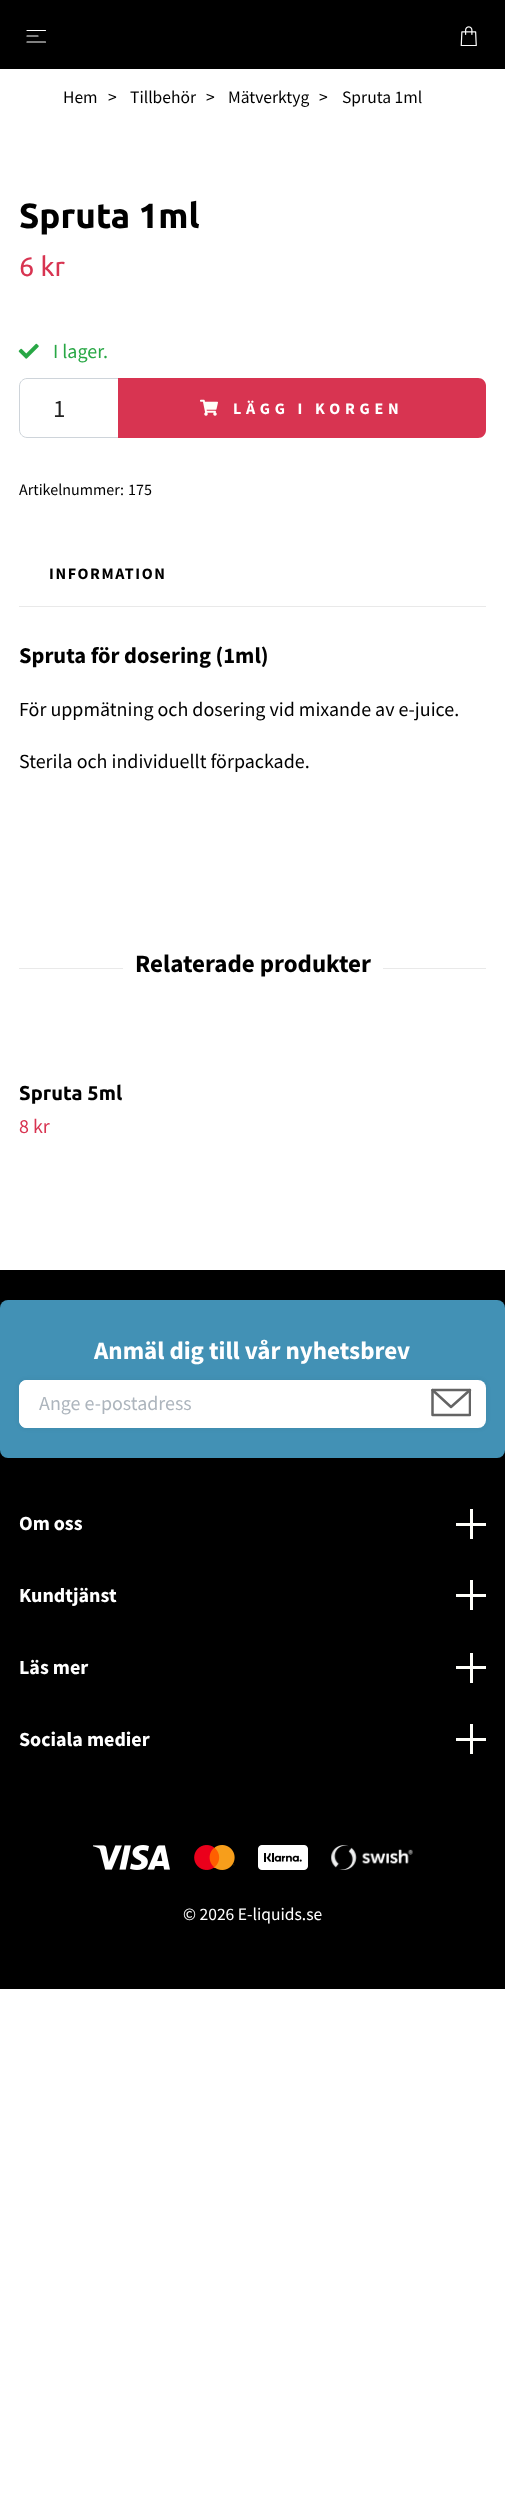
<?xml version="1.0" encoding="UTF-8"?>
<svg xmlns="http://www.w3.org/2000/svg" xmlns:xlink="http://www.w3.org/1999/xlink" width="505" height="2500">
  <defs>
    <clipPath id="clip1"><rect x="431" y="1383" width="40" height="40" /></clipPath>
  </defs>
  <rect width="100%" height="100%" fill="#ffffff" />
  <rect width="505" height="69" fill="#000000" />
  <path d="M 27 30.5 h 18.5 m -18.5 5.5 h 11 m -11 6 h 18.5" fill="none" stroke="#ffffff" stroke-width="1.2" stroke-linecap="round" stroke-linejoin="round" />
  <image x="460" y="26" width="17" height="20" xlink:href="image1.png" />
  <image x="18" y="343" width="21" height="16" xlink:href="image2.png" />
  <path d="M 27 378.5 h 91.5 v 59 h -91.5 c -4 0 -7.5 -3.5 -7.5 -7.5 v -44 c 0 -4 3.5 -7.5 7.5 -7.5 z" fill="none" stroke="#ced4da" />
  <path d="M 118 378 h 360 c 4.5 0 8 3.5 8 8 v 44 c 0 4.5 -3.5 8 -8 8 h -360 z" fill="#d83451" />
  <image x="200" y="399" width="18" height="17" xlink:href="image3.png" />
  <rect x="19" y="606" width="467" height="1" fill="#e9e9e9" />
  <rect x="19" y="968" width="467" height="1" fill="#e9e9e9" />
  <rect x="123" y="968" width="260" height="1" fill="#ffffff" />
  <rect y="1270" width="505" height="719" fill="#000000" />
  <rect y="1300" width="505" height="158" rx="8" fill="#4291b5" />
  <rect x="19" y="1380" width="467" height="48" rx="8" fill="#222222" fill-opacity="0.07" filter="blur(2.5px)" />
  <rect x="19" y="1380" width="467" height="48" rx="8" fill="#ffffff" />
  <path d="M 27 1380 h 389 v 48 h -389 c -4.5 0 -8 -3.5 -8 -8 v -32 c 0 -4.5 3.5 -8 8 -8 z" fill="#ffffff" />
  <path d="M 432.5 1390 l 18.5 17 l 19 -17" fill="none" stroke="#646464" stroke-width="2.5" stroke-linecap="round" stroke-linejoin="round" />
  <g clip-path="url(#clip1)">
    <path d="M 432.5 1390 h 37.5 v 25 h -37.5 z" fill="none" stroke="#646464" stroke-width="2.5" stroke-linecap="round" stroke-linejoin="round" />
  </g>
  <rect x="470" y="1509" width="3" height="30" fill="#fffffa" />
  <rect x="456" y="1523" width="30" height="3" fill="#fffffa" />
  <rect x="470" y="1580" width="3" height="30" fill="#fffffa" />
  <rect x="456" y="1594" width="30" height="3" fill="#fffffa" />
  <rect x="470" y="1653" width="3" height="30" fill="#fffffa" />
  <rect x="456" y="1666" width="30" height="3" fill="#fffffa" />
  <rect x="470" y="1724" width="3" height="30" fill="#fffffa" />
  <rect x="456" y="1738" width="30" height="3" fill="#fffffa" />
  <image x="93" y="1845" width="77" height="25" xlink:href="image4.png" />
  <image x="194" y="1845" width="41" height="25" xlink:href="image5.png" />
  <image x="258" y="1845" width="50" height="25" xlink:href="image6.png" />
  <image x="331" y="1845" width="82" height="25" xlink:href="image7.png" />
  <text x="63" y="103" style="font-family: Source Sans Pro; font-size: 17.5px; fill: #000000">Hem</text>
  <text x="108" y="103" style="font-family: Source Sans Pro; font-size: 17.5px; fill: #000000">&gt;</text>
  <text x="130" y="103" style="font-family: Source Sans Pro; font-size: 17.5px; fill: #000000">Tillbehör</text>
  <text x="206" y="103" style="font-family: Source Sans Pro; font-size: 17.5px; fill: #000000">&gt;</text>
  <text x="228" y="103" style="font-family: Source Sans Pro; font-size: 17.5px; fill: #000000">Mätverktyg</text>
  <text x="319" y="103" style="font-family: Source Sans Pro; font-size: 17.5px; fill: #000000">&gt;</text>
  <text x="342" y="103" style="font-family: Source Sans Pro; font-size: 17.5px; fill: #000000">Spruta 1ml</text>
  <text x="19" y="228" style="font-family: Ubuntu; font-size: 35px; font-weight: bold; fill: #000000">Spruta 1ml</text>
  <text x="19" y="276" style="font-family: Ubuntu; font-size: 27px; fill: #d83451">6 kr</text>
  <text x="53" y="358" style="font-family: Source Sans Pro; font-size: 20px; fill: #28a745">I lager.</text>
  <text x="53" y="417" style="font-family: Source Sans Pro; font-size: 25px; fill: #222222">1</text>
  <text x="233" y="414" style="font-family: Source Sans Pro; font-size: 16px; font-weight: bold; letter-spacing: 4.75px; fill: #ffffff">LÄGG I KORGEN</text>
  <text x="19" y="495" style="font-family: Source Sans Pro; font-size: 16px; fill: #000000">Artikelnummer:</text>
  <text x="128" y="495" style="font-family: Source Sans Pro; font-size: 16px; fill: #000000">175</text>
  <text x="49" y="579" style="font-family: Source Sans Pro; font-size: 16px; font-weight: bold; letter-spacing: 1.6px; fill: #000000">INFORMATION</text>
  <text x="19" y="663" style="font-family: Source Sans Pro; font-size: 22.5px; font-weight: bold; fill: #000000">Spruta för dosering (1ml)</text>
  <text x="19" y="716" style="font-family: Source Sans Pro; font-size: 20px; fill: #000000">För uppmätning och dosering vid mixande av e-juice.</text>
  <text x="19" y="768" style="font-family: Source Sans Pro; font-size: 20px; fill: #000000">Sterila och individuellt förpackade.</text>
  <text x="135" y="972" style="font-family: Source Sans Pro; font-size: 25px; font-weight: bold; fill: #000000">Relaterade produkter</text>
  <text x="19" y="1100" style="font-family: Ubuntu; font-size: 20px; font-weight: bold; fill: #000000">Spruta 5ml</text>
  <text x="19" y="1133" style="font-family: Source Sans Pro; font-size: 20px; fill: #d83451">8 kr</text>
  <text x="94" y="1359" style="font-family: Source Sans Pro; font-size: 25px; font-weight: bold; fill: #ffffff">Anmäl dig till vår nyhetsbrev</text>
  <text x="39" y="1410" style="font-family: Source Sans Pro; font-size: 20px; fill: #adb5bd">Ange e-postadress</text>
  <text x="19" y="1530" style="font-family: Source Sans Pro; font-size: 20px; font-weight: bold; fill: #ffffff">Om oss</text>
  <text x="19" y="1602" style="font-family: Source Sans Pro; font-size: 20px; font-weight: bold; fill: #ffffff">Kundtjänst</text>
  <text x="19" y="1674" style="font-family: Source Sans Pro; font-size: 20px; font-weight: bold; fill: #ffffff">Läs mer</text>
  <text x="19" y="1746" style="font-family: Source Sans Pro; font-size: 20px; font-weight: bold; fill: #ffffff">Sociala medier</text>
  <text x="183" y="1920" style="font-family: Source Sans Pro; font-size: 17.5px; fill: #ffffff">© 2026 E-liquids.se</text>
</svg>
